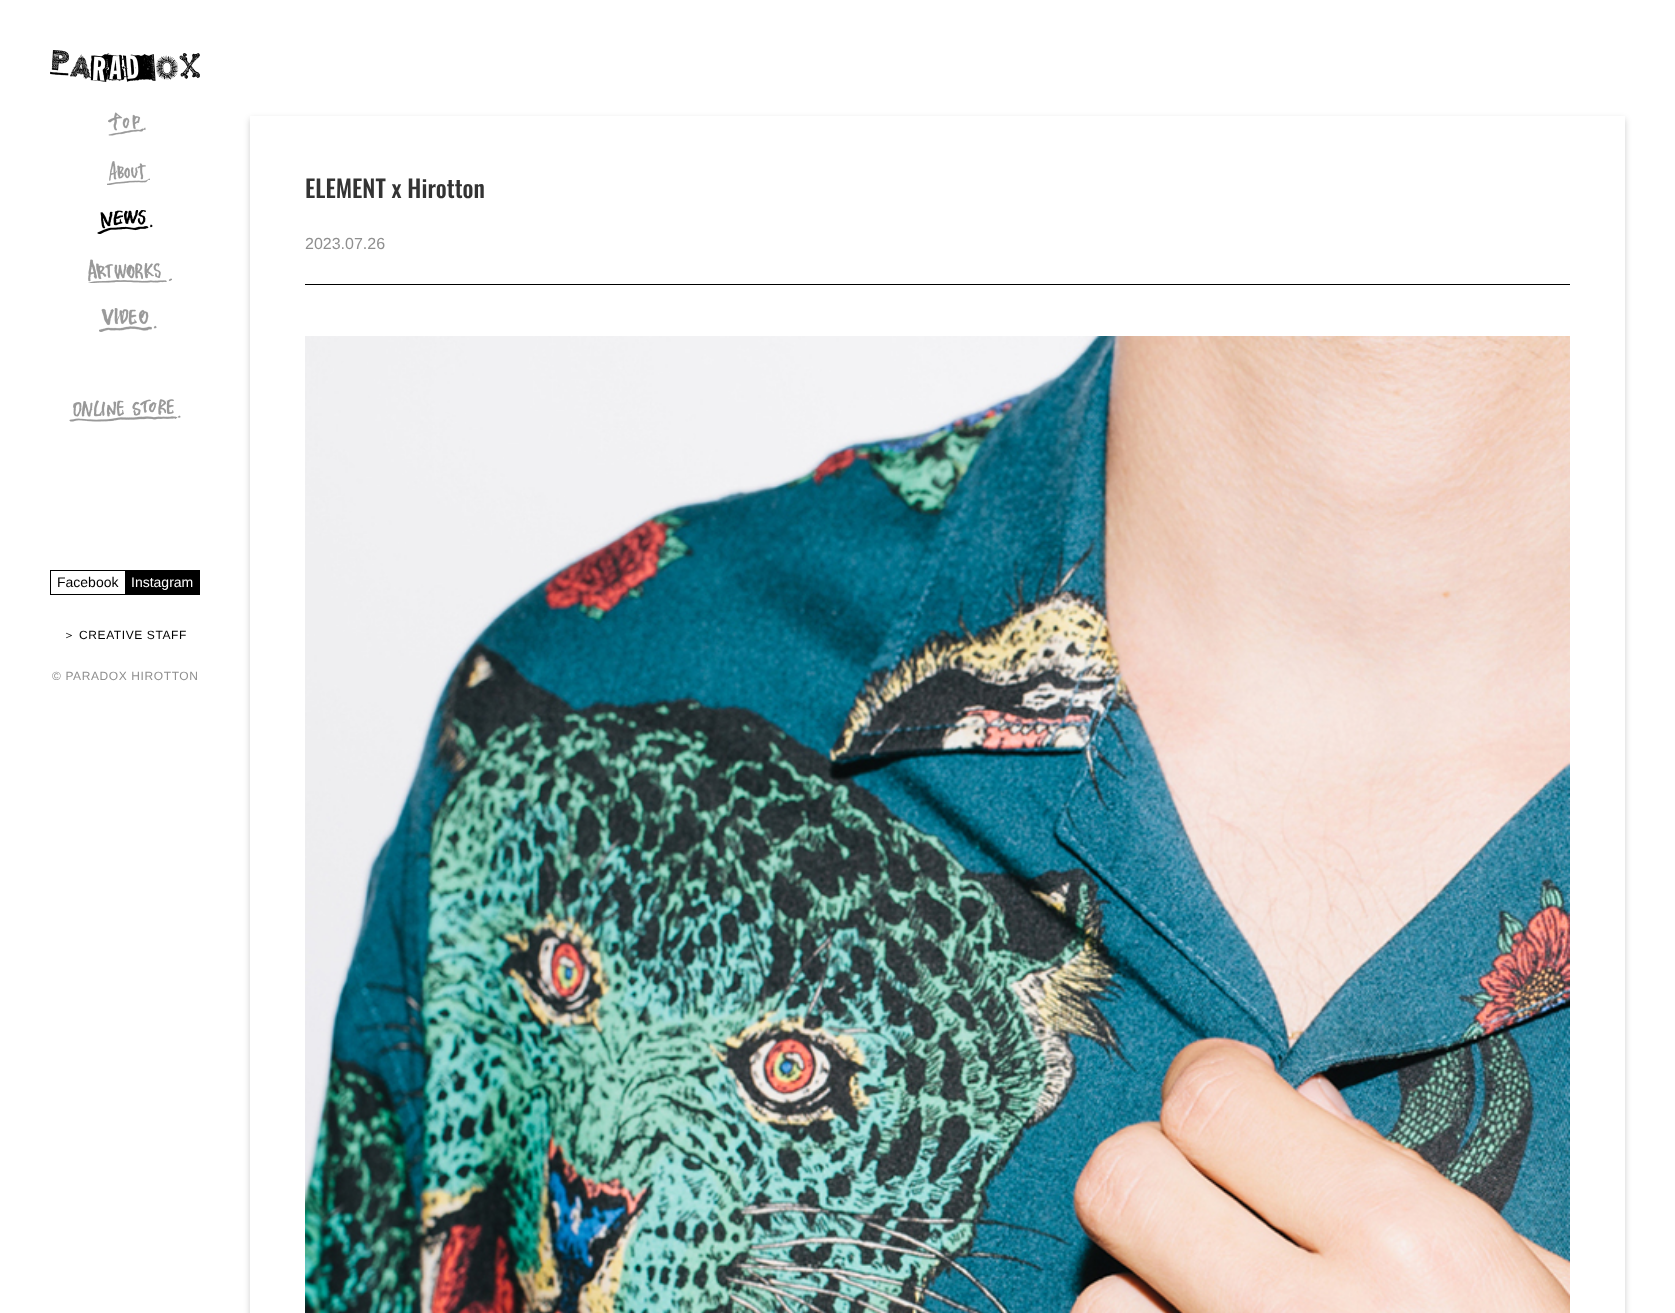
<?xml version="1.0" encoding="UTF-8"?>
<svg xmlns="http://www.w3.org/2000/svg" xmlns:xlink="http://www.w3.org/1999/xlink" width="1675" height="1313">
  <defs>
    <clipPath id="clip1"><path d="M 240 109 h 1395 v 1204 h -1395 z m 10 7 h 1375 v 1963 h -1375 z" clip-rule="evenodd" /></clipPath>
  </defs>
  <rect width="100%" height="100%" fill="#ffffff" />
  <g clip-path="url(#clip1)">
    <rect x="250" y="119" width="1375" height="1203" fill="#000000" fill-opacity="0.2" filter="blur(3px)" />
  </g>
  <rect x="305" y="284" width="1265" height="1" fill="#000000" />
  <image x="305" y="336" width="1265" height="977" xlink:href="image1.png" />
  <image x="50" y="50" width="150" height="32" xlink:href="image2.png" />
  <image x="108" y="112" width="38" height="24" xlink:href="image3.png" />
  <image x="107" y="161" width="43" height="24" xlink:href="image4.png" />
  <image x="97" y="210" width="56" height="24" xlink:href="image5.png" />
  <image x="88" y="259" width="84" height="24" xlink:href="image6.png" />
  <image x="99" y="308" width="58" height="24" xlink:href="image7.png" />
  <image x="69" y="399" width="112" height="23" xlink:href="image8.png" />
  <rect x="50.5" y="570.5" width="149" height="24" fill="none" stroke="#000000" />
  <rect x="125" y="571" width="74" height="23" fill="#000000" />
  <text x="305" y="198" style="font-family: Oswald; font-size: 24px; font-weight: 500; fill: #333333">ELEMENT x Hirotton</text>
  <text x="305" y="249" style="font-family: Liberation Sans; font-size: 16px; fill: #8f8f8f">2023.07.26</text>
  <text x="57" y="587" style="font-family: Liberation Sans; font-size: 14px; fill: #000000">Facebook</text>
  <text x="131" y="587" style="font-family: Liberation Sans; font-size: 14px; fill: #ffffff">Instagram</text>
  <text x="63" y="639" style="font-family: WenQuanYi Zen Hei; font-size: 12px; font-weight: 500; letter-spacing: 0.6px; fill: #000000">＞</text>
  <text x="79" y="639" style="font-family: Liberation Sans; font-size: 12px; letter-spacing: 0.6px; fill: #000000">CREATIVE STAFF</text>
  <text x="52" y="680" style="font-family: Liberation Sans; font-size: 12px; letter-spacing: 0.6px; fill: #8f8f8f">© PARADOX HIROTTON</text>
</svg>
